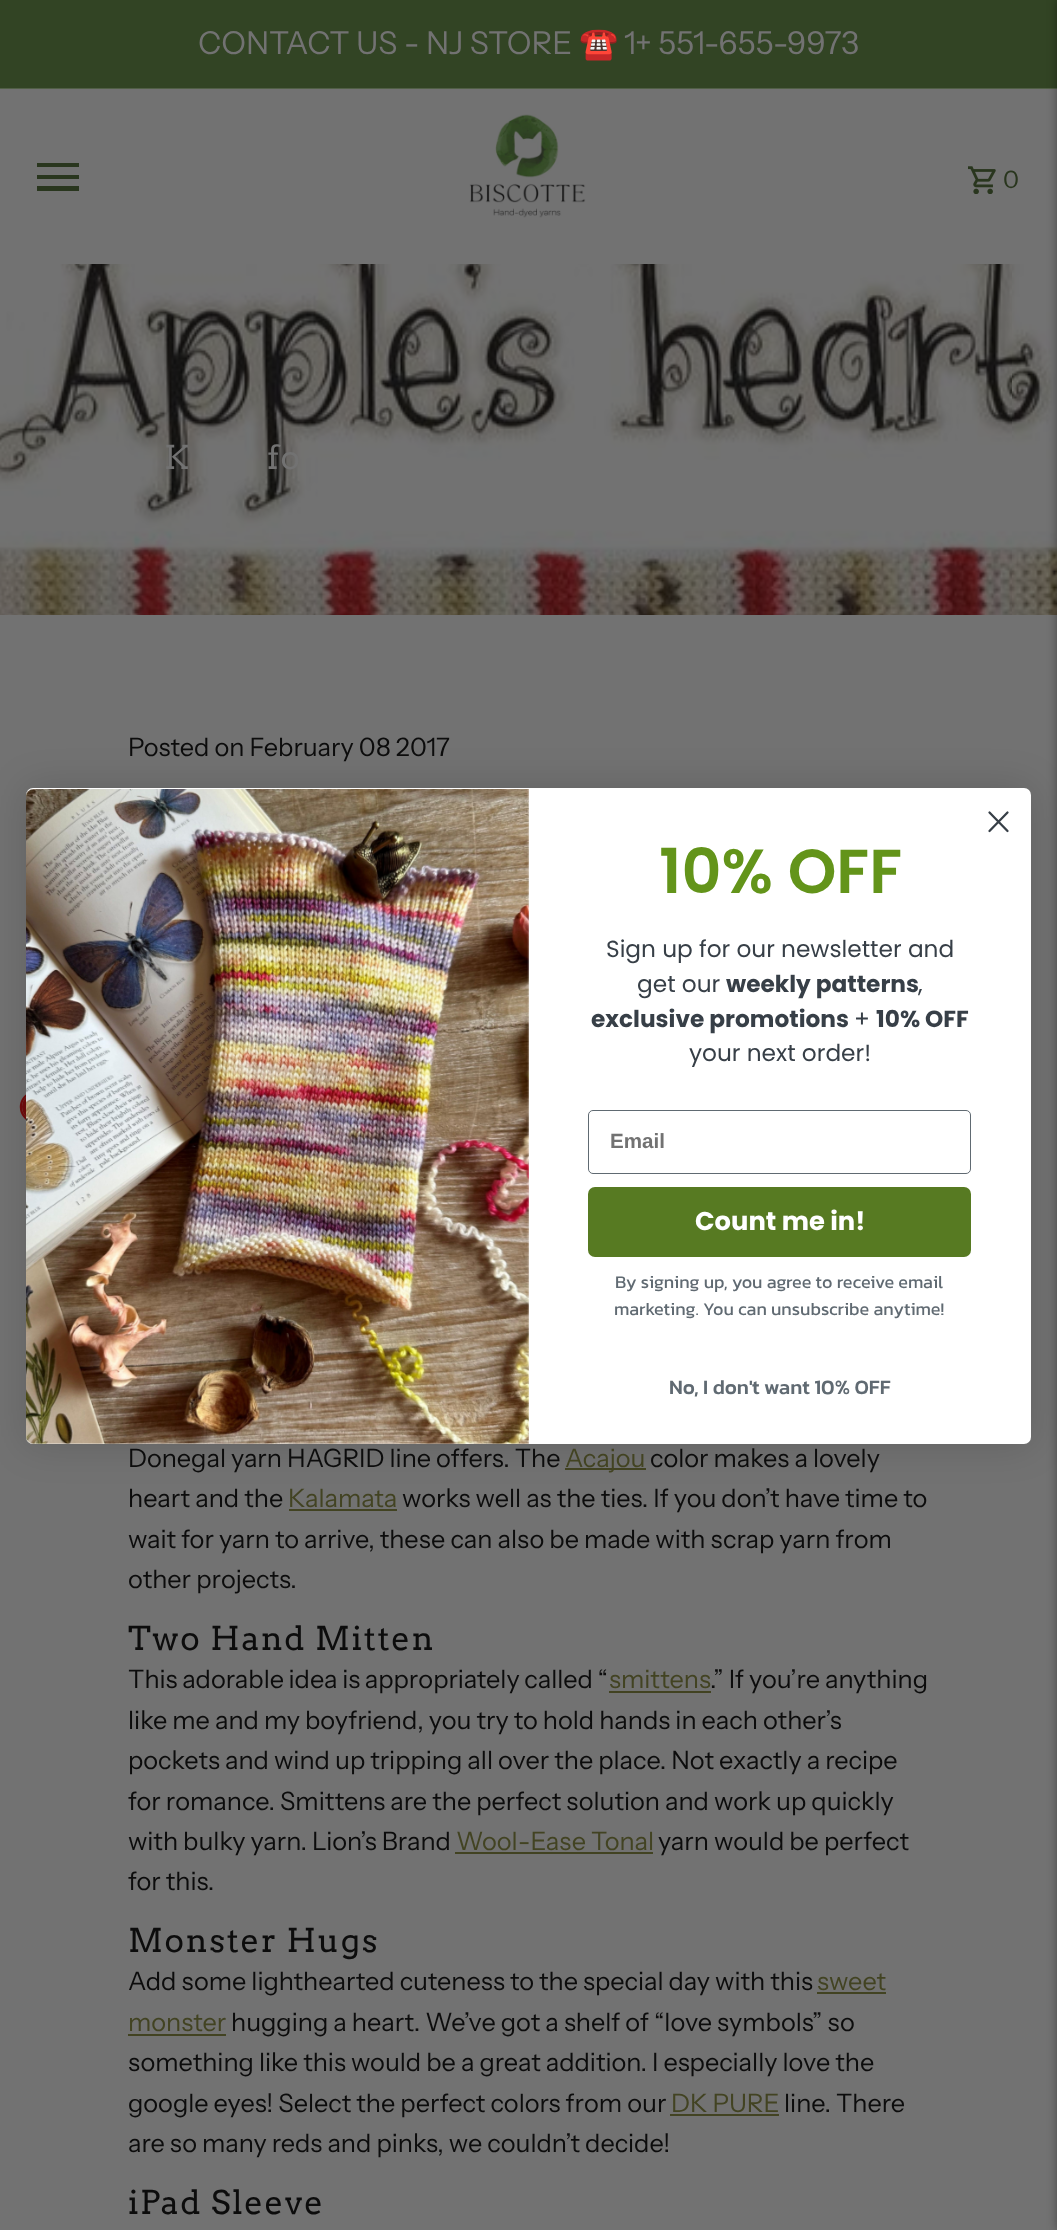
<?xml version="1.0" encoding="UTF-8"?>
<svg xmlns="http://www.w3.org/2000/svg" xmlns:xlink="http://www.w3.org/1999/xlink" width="1057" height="2230">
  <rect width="100%" height="100%" fill="#727272" />
  <image x="19" y="1094" width="7" height="26" xlink:href="image1.png" />
  <rect y="88" width="1057" height="1" fill="#515f46" />
  <rect width="1057" height="88" fill="#324424" />
  <image x="0" y="264" width="1057" height="351" xlink:href="image4.png" />
  <rect x="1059" width="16" height="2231" fill="#000000" fill-opacity="0.5" filter="blur(6px)" />
  <rect x="37" y="186" width="42" height="5" fill="#29361e" />
  <rect x="37" y="175" width="42" height="4" fill="#29361e" />
  <rect x="37" y="163" width="42" height="4" fill="#29361e" />
  <image x="469" y="114" width="117" height="104" xlink:href="image2.png" />
  <image x="968" y="166" width="28" height="28" xlink:href="image3.png" />
  <rect x="565" y="1468" width="81" height="2" fill="#424322" />
  <rect x="289" y="1509" width="108" height="2" fill="#424322" />
  <rect x="609" y="1691" width="102" height="2" fill="#424322" />
  <rect x="455" y="1852" width="198" height="2" fill="#424322" />
  <rect x="817" y="1992" width="69" height="2" fill="#424322" />
  <rect x="128" y="2034" width="98" height="2" fill="#424322" />
  <rect x="670" y="2114" width="109" height="2" fill="#424322" />
  <rect x="26" y="788" width="1005" height="656" rx="7" fill="#000000" fill-opacity="0.15" filter="blur(19.5px)" />
  <rect x="26" y="788" width="1005" height="656" rx="7" fill="#ffffff" />
  <path d="M 989.5 812.5 l 18 18.5 m -18 0 l 18 -18.5 z" fill="none" stroke="#373f47" stroke-width="2.3" stroke-linecap="round" stroke-linejoin="round" />
  <image x="26" y="789" width="503" height="655" xlink:href="image5.png" />
  <rect x="588.5" y="1110.5" width="382" height="63" rx="4.5" fill="none" stroke="#606a72" />
  <rect x="588" y="1187" width="383" height="70" rx="7" fill="#577a22" />
  <text x="198" y="54" style="font-family: Instrument Sans; font-size: 31.5px; fill: #727272">CONTACT US - NJ STORE</text>
  <text x="579" y="54" style="font-family: Noto Color Emoji; font-size: 31.5px; fill: #727272">☎️</text>
  <text x="624" y="54" style="font-family: Instrument Sans; font-size: 31.5px; fill: #727272">1+ 551-655-9973</text>
  <text x="1003" y="188" style="font-family: Instrument Sans; font-size: 24px; letter-spacing: 2px; fill: #29361e">0</text>
  <text x="164" y="469" style="font-family: Arvo; font-size: 32.75px; letter-spacing: 1.6px; fill: #727272">K</text>
  <text x="267" y="469" style="font-family: Arvo; font-size: 32.75px; letter-spacing: 1.6px; fill: #727272">fo</text>
  <text x="128" y="756" style="font-family: Instrument Sans; font-size: 25.3px; fill: #0c0c0c">Posted on February 08 2017</text>
  <text x="128" y="1467" style="font-family: Instrument Sans; font-size: 25.3px; fill: #0c0c0c">Donegal yarn HAGRID line offers. The</text>
  <text x="565" y="1467" style="font-family: Instrument Sans; font-size: 25.3px; fill: #424322">Acajou</text>
  <text x="650" y="1467" style="font-family: Instrument Sans; font-size: 25.3px; fill: #0c0c0c">color makes a lovely</text>
  <text x="128" y="1507" style="font-family: Instrument Sans; font-size: 25.3px; fill: #0c0c0c">heart and the</text>
  <text x="288" y="1507" style="font-family: Instrument Sans; font-size: 25.3px; fill: #424322">Kalamata</text>
  <text x="402" y="1507" style="font-family: Instrument Sans; font-size: 25.3px; fill: #0c0c0c">works well as the ties. If you don’t have time to</text>
  <text x="128" y="1548" style="font-family: Instrument Sans; font-size: 25.3px; fill: #0c0c0c">wait for yarn to arrive, these can also be made with scrap yarn from</text>
  <text x="128" y="1588" style="font-family: Instrument Sans; font-size: 25.3px; fill: #0c0c0c">other projects.</text>
  <text x="128" y="1650" style="font-family: Arvo; font-size: 32.75px; letter-spacing: 1.6px; fill: #0c0c0c">Two Hand Mitten</text>
  <text x="128" y="1688" word-spacing="-0.5" style="font-family: Instrument Sans; font-size: 25.3px; fill: #0c0c0c">This adorable idea is appropriately called “</text>
  <text x="609" y="1688" style="font-family: Instrument Sans; font-size: 25.3px; fill: #424322">smittens</text>
  <text x="710" y="1688" style="font-family: Instrument Sans; font-size: 25.3px; fill: #0c0c0c">.” If you’re anything</text>
  <text x="128" y="1729" style="font-family: Instrument Sans; font-size: 25.3px; fill: #0c0c0c">like me and my boyfriend, you try to hold hands in each other’s</text>
  <text x="128" y="1769" style="font-family: Instrument Sans; font-size: 25.3px; fill: #0c0c0c">pockets and wind up tripping all over the place. Not exactly a recipe</text>
  <text x="128" y="1810" style="font-family: Instrument Sans; font-size: 25.3px; fill: #0c0c0c">for romance. Smittens are the perfect solution and work up quickly</text>
  <text x="128" y="1850" style="font-family: Instrument Sans; font-size: 25.3px; fill: #0c0c0c">with bulky yarn. Lion’s Brand</text>
  <text x="456" y="1850" style="font-family: Instrument Sans; font-size: 25.3px; fill: #424322">Wool-Ease Tonal</text>
  <text x="658" y="1850" style="font-family: Instrument Sans; font-size: 25.3px; fill: #0c0c0c">yarn would be perfect</text>
  <text x="128" y="1890" style="font-family: Instrument Sans; font-size: 25.3px; fill: #0c0c0c">for this.</text>
  <text x="128" y="1952" style="font-family: Arvo; font-size: 32.75px; letter-spacing: 1.6px; fill: #0c0c0c">Monster Hugs</text>
  <text x="128" y="1990" style="font-family: Instrument Sans; font-size: 25.3px; fill: #0c0c0c">Add some lighthearted cuteness to the special day with this</text>
  <text x="817" y="1990" style="font-family: Instrument Sans; font-size: 25.3px; fill: #424322">sweet</text>
  <text x="128" y="2031" style="font-family: Instrument Sans; font-size: 25.3px; fill: #424322">monster</text>
  <text x="231" y="2031" style="font-family: Instrument Sans; font-size: 25.3px; fill: #0c0c0c">hugging a heart. We’ve got a shelf of “love symbols” so</text>
  <text x="128" y="2071" style="font-family: Instrument Sans; font-size: 25.3px; fill: #0c0c0c">something like this would be a great addition. I especially love the</text>
  <text x="128" y="2112" style="font-family: Instrument Sans; font-size: 25.3px; fill: #0c0c0c">google eyes! Select the perfect colors from our</text>
  <text x="671" y="2112" style="font-family: Instrument Sans; font-size: 25.3px; fill: #424322">DK PURE</text>
  <text x="784" y="2112" style="font-family: Instrument Sans; font-size: 25.3px; fill: #0c0c0c">line. There</text>
  <text x="128" y="2152" style="font-family: Instrument Sans; font-size: 25.3px; fill: #0c0c0c">are so many reds and pinks, we couldn’t decide!</text>
  <text x="128" y="2214" style="font-family: Arvo; font-size: 32.75px; letter-spacing: 1.6px; fill: #0c0c0c">iPad Sleeve</text>
  <text x="659" y="893" style="font-family: Poppins; font-size: 62px; font-weight: 600; fill: #63941a">10% OFF</text>
  <text x="606" y="957" style="font-family: Poppins; font-size: 23.25px; fill: #373f47">Sign up for our newsletter and</text>
  <text x="637" y="992" style="font-family: Poppins; font-size: 23.25px; fill: #373f47">get our</text>
  <text x="726" y="992" style="font-family: Poppins; font-size: 23.25px; font-weight: bold; fill: #373f47">weekly patterns</text>
  <text x="918" y="992" style="font-family: Poppins; font-size: 23.25px; fill: #373f47">,</text>
  <text x="591" y="1027" style="font-family: Poppins; font-size: 23.25px; font-weight: bold; fill: #373f47">exclusive promotions</text>
  <text x="854" y="1027" style="font-family: Poppins; font-size: 23.25px; fill: #373f47">+</text>
  <text x="876" y="1027" style="font-family: Poppins; font-size: 23.25px; font-weight: bold; fill: #373f47">10% OFF</text>
  <text x="689" y="1061" style="font-family: Poppins; font-size: 23.25px; fill: #373f47">your next order!</text>
  <text x="610" y="1148" style="font-family: Liberation Sans; font-size: 20.6px; font-weight: bold; fill: #727272">Email</text>
  <text x="695" y="1230" style="font-family: Poppins; font-size: 25.75px; font-weight: bold; fill: #ffffff">Count me in!</text>
  <text x="615" y="1288" style="font-family: Kanit; font-size: 18px; fill: #606a72">By signing up, you agree to receive email</text>
  <text x="614" y="1315" style="font-family: Kanit; font-size: 18px; fill: #606a72">marketing. You can unsubscribe anytime!</text>
  <text x="669" y="1394" style="font-family: Kanit; font-size: 20.6px; font-weight: 500; fill: #606a72">No, I don't want 10% OFF</text>
</svg>
